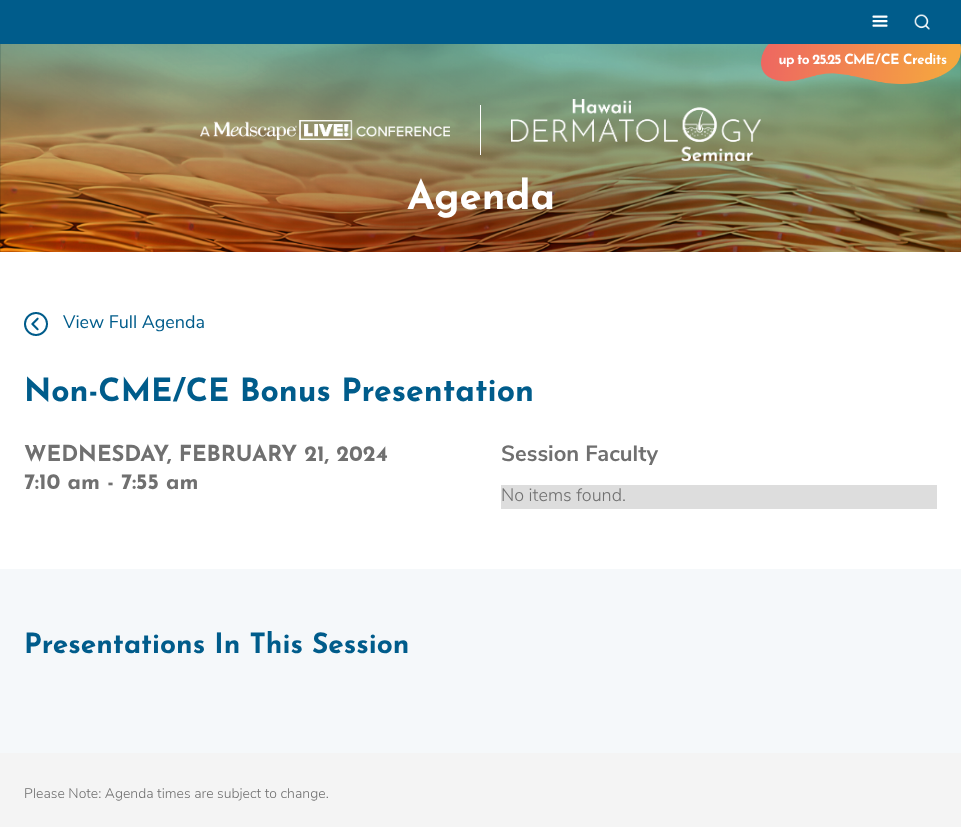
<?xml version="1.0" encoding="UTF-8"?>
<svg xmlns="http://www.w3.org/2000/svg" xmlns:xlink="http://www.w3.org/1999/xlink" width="961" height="827">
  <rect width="100%" height="100%" fill="#ffffff" />
  <rect width="961" height="44" fill="#005c8b" />
  <image x="872" y="15" width="16" height="12" xlink:href="image1.png" />
  <image x="914" y="14" width="16" height="16" xlink:href="image2.png" />
  <image x="0" y="44" width="961" height="208" xlink:href="image3.png" />
  <image x="761" y="44" width="200" height="40" xlink:href="image4.png" />
  <image x="200" y="120" width="250" height="20" xlink:href="image5.png" />
  <rect x="480" y="105" width="1" height="50" fill="#ffffff" />
  <image x="511" y="99" width="250" height="62" xlink:href="image6.png" />
  <image x="24" y="312" width="24" height="24" xlink:href="image7.png" />
  <rect x="501" y="485" width="436" height="24" fill="#dddddd" />
  <rect y="569" width="961" height="184" fill="#f5f8fa" />
  <rect y="753" width="961" height="74" fill="#f4f4f4" />
  <text x="407" y="209" style="font-family: Josefin Sans; font-size: 40px; font-weight: bold; fill: #ffffff">Agenda</text>
  <text x="63" y="328" style="font-family: Nunito Sans; font-size: 18px; fill: #005c8b">View Full Agenda</text>
  <text x="24" y="401" style="font-family: Josefin Sans; font-size: 32px; font-weight: bold; fill: #005c8b">Non-CME/CE Bonus Presentation</text>
  <text x="24" y="461" style="font-family: Josefin Sans; font-size: 22px; font-weight: bold; fill: #707070">WEDNESDAY, FEBRUARY 21, 2024</text>
  <text x="24" y="489" style="font-family: Josefin Sans; font-size: 22px; font-weight: bold; fill: #707070">7:10 am - 7:55 am</text>
  <text x="501" y="461" style="font-family: Nunito Sans; font-size: 22px; font-weight: bold; fill: #707070">Session Faculty</text>
  <text x="501" y="501" style="font-family: Nunito Sans; font-size: 18px; font-weight: 300; fill: #707070">No items found.</text>
  <text x="24" y="653" style="font-family: Josefin Sans; font-size: 28px; font-weight: bold; fill: #005c8b">Presentations In This Session</text>
  <text x="24" y="798" style="font-family: Nunito Sans; font-size: 14px; font-weight: 300; fill: #707070">Please Note: Agenda times are subject to change.</text>
</svg>
